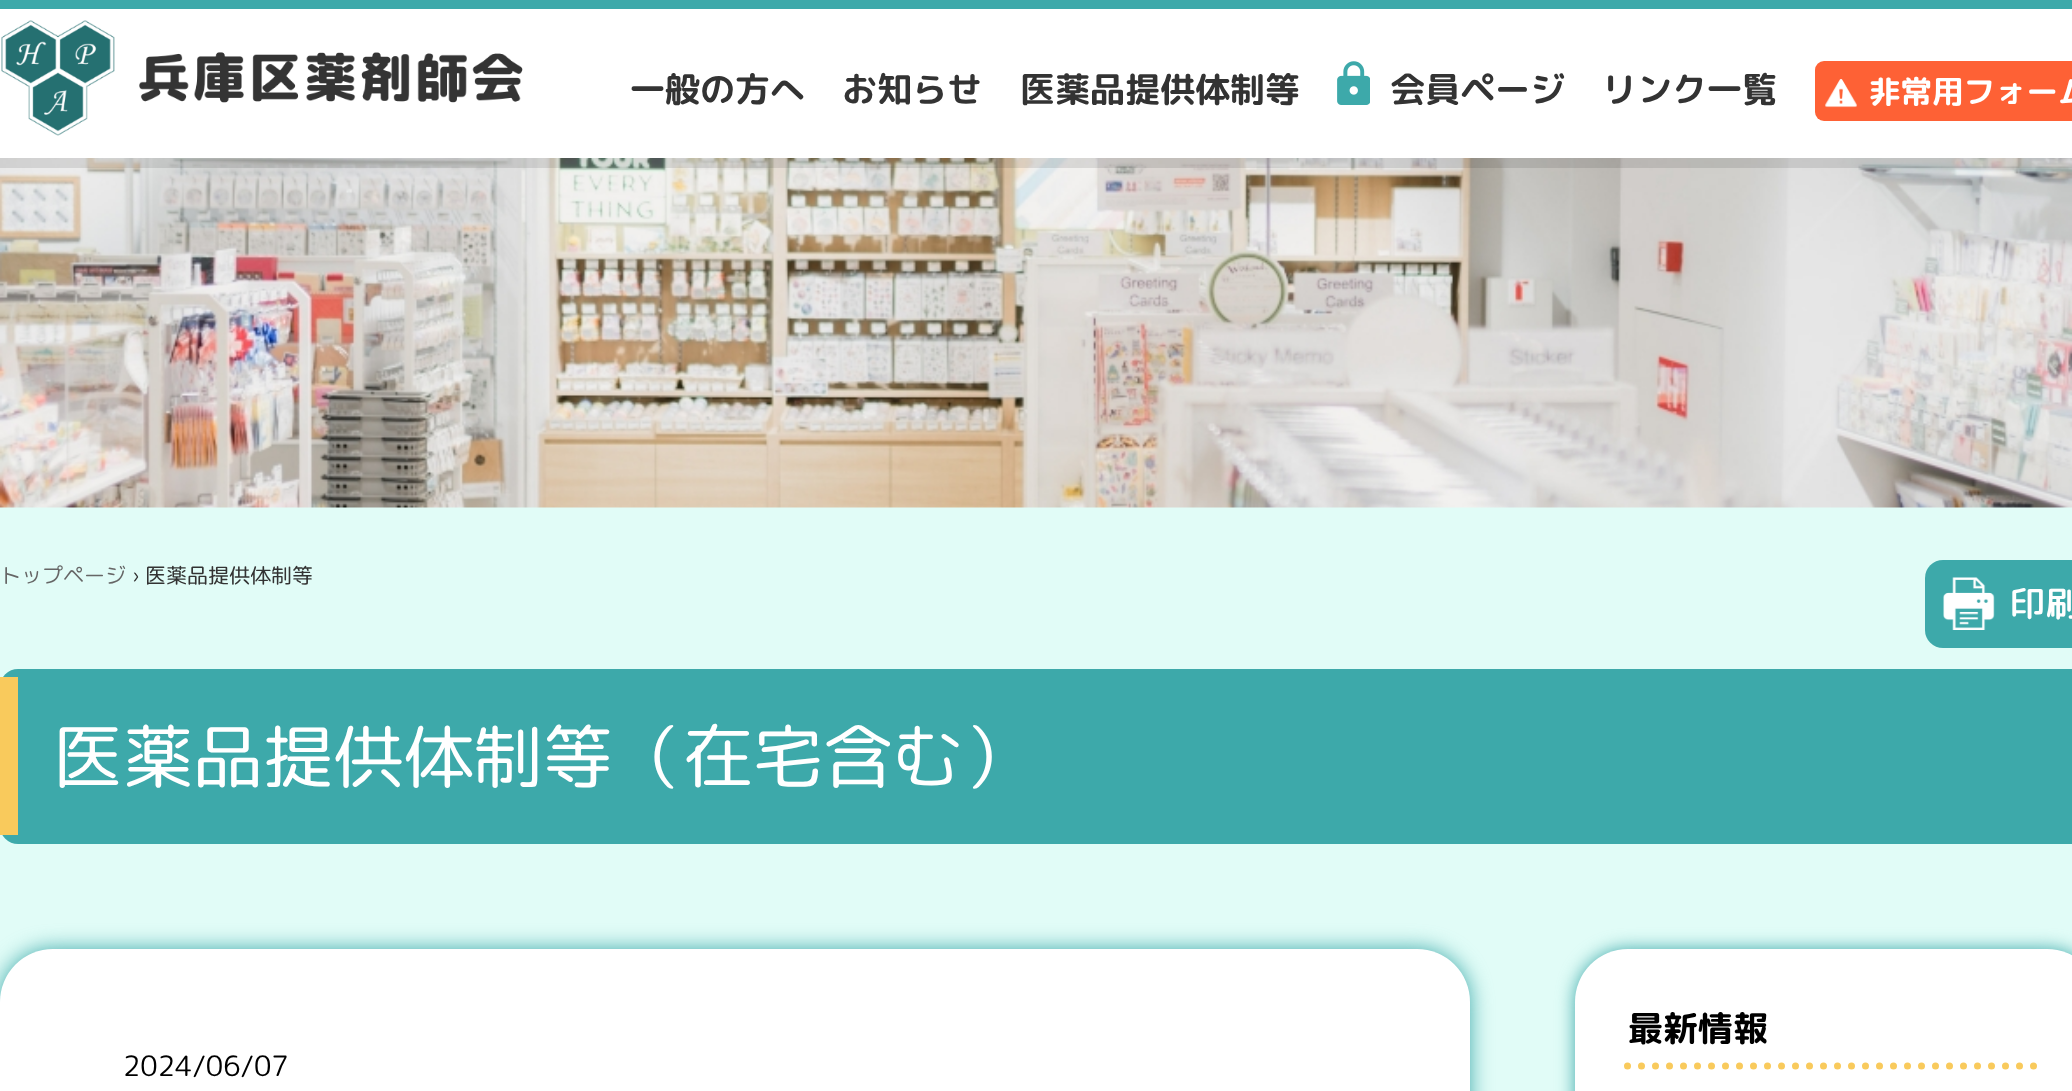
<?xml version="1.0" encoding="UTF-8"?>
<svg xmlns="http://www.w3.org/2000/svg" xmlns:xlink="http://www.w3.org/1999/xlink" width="2072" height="1091">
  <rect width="100%" height="100%" fill="#e1fcf7" />
  <image x="0" y="158" width="2072" height="350" xlink:href="image4.png" />
  <rect y="158" width="2072" height="10" fill="#000000" fill-opacity="0.1" />
  <rect y="9" width="2072" height="149" fill="#ffffff" />
  <rect width="2072" height="9" fill="#3da9aa" />
  <image x="1" y="20" width="522" height="116" xlink:href="image1.png" />
  <image x="1337" y="61" width="33" height="44" xlink:href="image2.png" />
  <rect x="1815" y="61" width="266" height="60" rx="9" fill="#fe6135" />
  <image x="1825" y="79" width="32" height="29" xlink:href="image3.png" />
  <rect x="1925" y="560" width="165" height="88" rx="18" fill="#3da9aa" />
  <image x="1943" y="577" width="52" height="53" xlink:href="image5.png" />
  <rect y="669" width="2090" height="175" rx="18" fill="#3da9aa" />
  <rect y="677" width="18" height="158" fill="#f9ca5c" />
  <rect x="1575" y="949" width="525" height="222" rx="53" fill="#3da9aa" filter="blur(9px)" />
  <rect x="1575" y="949" width="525" height="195" rx="53" fill="#ffffff" />
  <path d="M 1627.5 1066 h 420" fill="none" stroke="#f9ca5c" stroke-width="7" stroke-linecap="round" stroke-dasharray="0 14" />
  <rect y="949" width="1470" height="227" rx="53" fill="#3da9aa" filter="blur(10.5px)" />
  <rect y="949" width="1470" height="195" rx="53" fill="#ffffff" />
  <text x="630" y="102" style="font-family: 'Rounded Mplus 1c Bold'; font-size: 35px; font-weight: bold; fill: #333333">一般の方へ</text>
  <text x="842" y="102" style="font-family: 'Rounded Mplus 1c Bold'; font-size: 35px; font-weight: bold; fill: #333333">お知らせ</text>
  <text x="1020" y="102" style="font-family: 'Rounded Mplus 1c Bold'; font-size: 35px; font-weight: bold; fill: #333333">医薬品提供体制等</text>
  <text x="1390" y="102" style="font-family: 'Rounded Mplus 1c Bold'; font-size: 35px; font-weight: bold; fill: #333333">会員ページ</text>
  <text x="1602" y="102" style="font-family: 'Rounded Mplus 1c Bold'; font-size: 35px; font-weight: bold; fill: #333333">リンク一覧</text>
  <text x="1869" y="103" style="font-family: 'Rounded Mplus 1c Bold'; font-size: 31.5px; font-weight: bold; fill: #ffffff">非常用フォーム</text>
  <text x="0" y="583" style="font-family: 'Rounded Mplus 1c'; font-size: 21px; fill: #666666">トップページ</text>
  <text x="132" y="583" style="font-family: 'Rounded Mplus 1c'; font-size: 21px; fill: #333333">› 医薬品提供体制等</text>
  <text x="2010" y="616" style="font-family: 'Rounded Mplus 1c'; font-size: 35px; font-weight: 500; fill: #ffffff">印刷</text>
  <text x="53" y="782" style="font-family: 'Rounded Mplus 1c'; font-size: 70px; fill: #ffffff">医薬品提供体制等（在宅含む）</text>
  <text x="1628" y="1041" style="font-family: 'Rounded Mplus 1c Bold'; font-size: 35px; font-weight: bold; fill: #000000">最新情報</text>
  <text x="123" y="1076" style="font-family: 'Rounded Mplus 1c'; font-size: 28px; fill: #000000">2024/06/07</text>
</svg>
